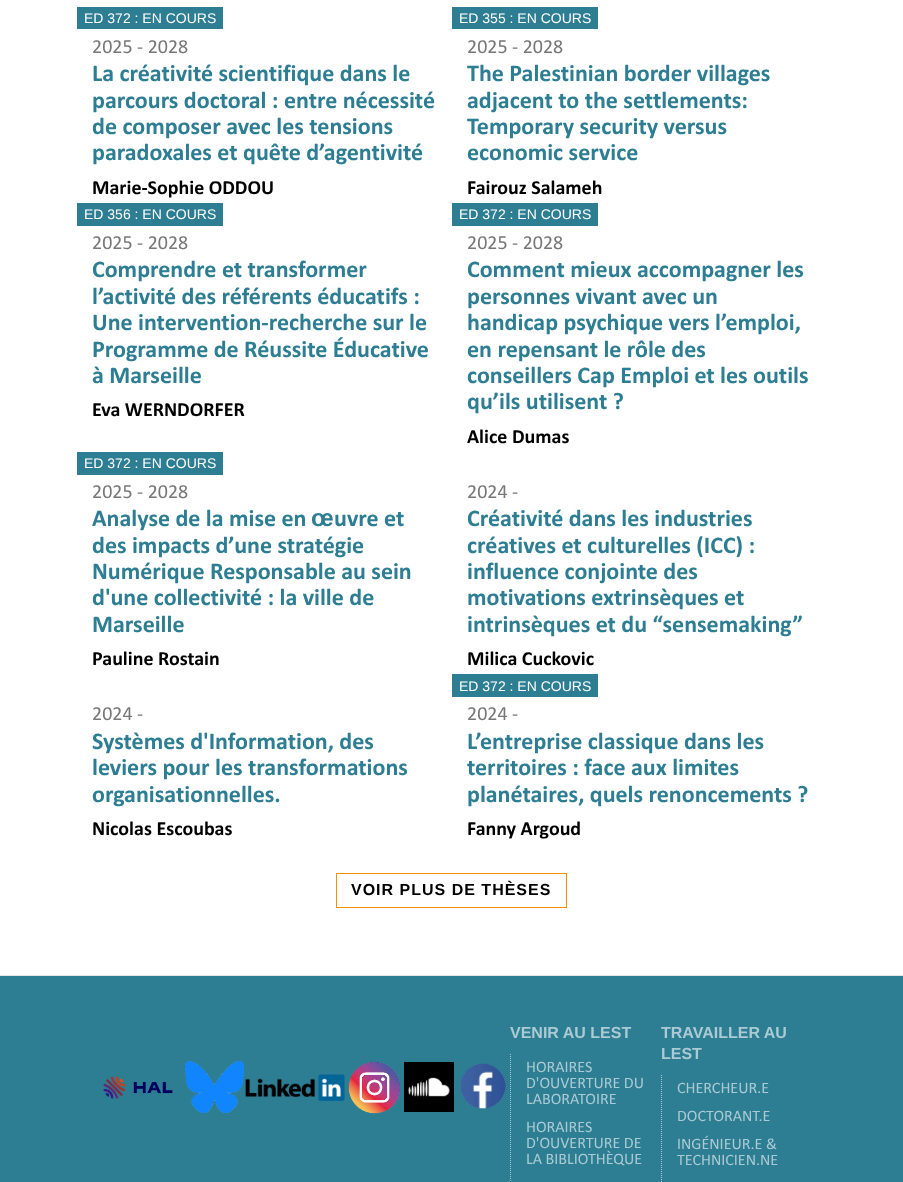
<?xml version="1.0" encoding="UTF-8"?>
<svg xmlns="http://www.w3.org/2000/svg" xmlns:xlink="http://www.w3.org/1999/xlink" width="903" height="1182">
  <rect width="100%" height="100%" fill="#ffffff" />
  <rect x="77" y="7" width="146" height="22" fill="#2d7d93" />
  <rect x="452" y="7" width="146" height="22" fill="#2d7d93" />
  <rect x="77" y="203" width="146" height="23" fill="#2d7d93" />
  <rect x="452" y="203" width="146" height="23" fill="#2d7d93" />
  <rect x="77" y="452" width="146" height="23" fill="#2d7d93" />
  <rect x="452" y="674" width="146" height="23" fill="#2d7d93" />
  <rect x="336.5" y="873.5" width="230" height="34" fill="none" stroke="#f39200" />
  <rect y="976" width="903" height="206" fill="#2d7d93" />
  <rect y="975" width="903" height="1" fill="#e5e5e5" />
  <image x="103" y="1076" width="70" height="23" xlink:href="image1.png" />
  <image x="185" y="1061" width="59" height="52" xlink:href="image2.png" />
  <image x="245" y="1074" width="100" height="27" xlink:href="image3.png" />
  <image x="348" y="1061" width="53" height="53" xlink:href="image4.png" />
  <image x="404" y="1062" width="50" height="50" xlink:href="image5.png" />
  <image x="460" y="1063" width="46" height="46" xlink:href="image6.png" />
  <path d="M 510.5 1054 v 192" fill="none" stroke="#abcbd4" stroke-dasharray="1 1" />
  <path d="M 661.5 1075 v 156" fill="none" stroke="#abcbd4" stroke-dasharray="1 1" />
  <text x="84" y="23" style="font-family: Liberation Sans; font-size: 14px; fill: #ffffff">ED 372 : EN COURS</text>
  <text x="92" y="53" style="font-family: Calibri; font-size: 20px; fill: #777777">2025 - 2028</text>
  <text x="92" y="81" style="font-family: Calibri; font-size: 24px; font-weight: bold; fill: #2d7d93">La créativité scientifique dans le</text>
  <text x="92" y="108" style="font-family: Calibri; font-size: 24px; font-weight: bold; fill: #2d7d93">parcours doctoral : entre nécessité</text>
  <text x="92" y="134" style="font-family: Calibri; font-size: 24px; font-weight: bold; fill: #2d7d93">de composer avec les tensions</text>
  <text x="92" y="160" style="font-family: Calibri; font-size: 24px; font-weight: bold; fill: #2d7d93">paradoxales et quête d’agentivité</text>
  <text x="92" y="194" style="font-family: Calibri; font-size: 20px; font-weight: bold; fill: #000000">Marie-Sophie ODDOU</text>
  <text x="459" y="23" style="font-family: Liberation Sans; font-size: 14px; fill: #ffffff">ED 355 : EN COURS</text>
  <text x="467" y="53" style="font-family: Calibri; font-size: 20px; fill: #777777">2025 - 2028</text>
  <text x="467" y="81" style="font-family: Calibri; font-size: 24px; font-weight: bold; fill: #2d7d93">The Palestinian border villages</text>
  <text x="467" y="108" style="font-family: Calibri; font-size: 24px; font-weight: bold; fill: #2d7d93">adjacent to the settlements:</text>
  <text x="467" y="134" style="font-family: Calibri; font-size: 24px; font-weight: bold; fill: #2d7d93">Temporary security versus</text>
  <text x="467" y="160" style="font-family: Calibri; font-size: 24px; font-weight: bold; fill: #2d7d93">economic service</text>
  <text x="467" y="194" style="font-family: Calibri; font-size: 20px; font-weight: bold; fill: #000000">Fairouz Salameh</text>
  <text x="84" y="219" style="font-family: Liberation Sans; font-size: 14px; fill: #ffffff">ED 356 : EN COURS</text>
  <text x="92" y="249" style="font-family: Calibri; font-size: 20px; fill: #777777">2025 - 2028</text>
  <text x="92" y="277" style="font-family: Calibri; font-size: 24px; font-weight: bold; fill: #2d7d93">Comprendre et transformer</text>
  <text x="92" y="304" style="font-family: Calibri; font-size: 24px; font-weight: bold; fill: #2d7d93">l’activité des référents éducatifs :</text>
  <text x="92" y="330" style="font-family: Calibri; font-size: 24px; font-weight: bold; fill: #2d7d93">Une intervention-recherche sur le</text>
  <text x="92" y="357" style="font-family: Calibri; font-size: 24px; font-weight: bold; fill: #2d7d93">Programme de Réussite Éducative</text>
  <text x="92" y="383" style="font-family: Calibri; font-size: 24px; font-weight: bold; fill: #2d7d93">à Marseille</text>
  <text x="92" y="416" style="font-family: Calibri; font-size: 20px; font-weight: bold; fill: #000000">Eva WERNDORFER</text>
  <text x="459" y="219" style="font-family: Liberation Sans; font-size: 14px; fill: #ffffff">ED 372 : EN COURS</text>
  <text x="467" y="249" style="font-family: Calibri; font-size: 20px; fill: #777777">2025 - 2028</text>
  <text x="467" y="277" style="font-family: Calibri; font-size: 24px; font-weight: bold; fill: #2d7d93">Comment mieux accompagner les</text>
  <text x="467" y="304" style="font-family: Calibri; font-size: 24px; font-weight: bold; fill: #2d7d93">personnes vivant avec un</text>
  <text x="467" y="330" style="font-family: Calibri; font-size: 24px; font-weight: bold; fill: #2d7d93">handicap psychique vers l’emploi,</text>
  <text x="467" y="357" style="font-family: Calibri; font-size: 24px; font-weight: bold; fill: #2d7d93">en repensant le rôle des</text>
  <text x="467" y="383" style="font-family: Calibri; font-size: 24px; font-weight: bold; fill: #2d7d93">conseillers Cap Emploi et les outils</text>
  <text x="467" y="409" style="font-family: Calibri; font-size: 24px; font-weight: bold; fill: #2d7d93">qu’ils utilisent ?</text>
  <text x="467" y="443" style="font-family: Calibri; font-size: 20px; font-weight: bold; fill: #000000">Alice Dumas</text>
  <text x="84" y="468" style="font-family: Liberation Sans; font-size: 14px; fill: #ffffff">ED 372 : EN COURS</text>
  <text x="92" y="498" style="font-family: Calibri; font-size: 20px; fill: #777777">2025 - 2028</text>
  <text x="92" y="526" style="font-family: Calibri; font-size: 24px; font-weight: bold; fill: #2d7d93">Analyse de la mise en</text>
  <text x="311" y="526" style="font-family: Liberation Sans; font-size: 24px; font-weight: bold; fill: #2d7d93">œ</text>
  <text x="334" y="526" style="font-family: Calibri; font-size: 24px; font-weight: bold; fill: #2d7d93">uvre et</text>
  <text x="92" y="553" style="font-family: Calibri; font-size: 24px; font-weight: bold; fill: #2d7d93">des impacts d’une stratégie</text>
  <text x="92" y="579" style="font-family: Calibri; font-size: 24px; font-weight: bold; fill: #2d7d93">Numérique Responsable au sein</text>
  <text x="92" y="605" style="font-family: Calibri; font-size: 24px; font-weight: bold; fill: #2d7d93">d'une collectivité : la ville de</text>
  <text x="92" y="632" style="font-family: Calibri; font-size: 24px; font-weight: bold; fill: #2d7d93">Marseille</text>
  <text x="92" y="665" style="font-family: Calibri; font-size: 20px; font-weight: bold; fill: #000000">Pauline Rostain</text>
  <text x="467" y="498" style="font-family: Calibri; font-size: 20px; fill: #777777">2024 -</text>
  <text x="467" y="526" style="font-family: Calibri; font-size: 24px; font-weight: bold; fill: #2d7d93">Créativité dans les industries</text>
  <text x="467" y="553" style="font-family: Calibri; font-size: 24px; font-weight: bold; fill: #2d7d93">créatives et culturelles (ICC) :</text>
  <text x="467" y="579" style="font-family: Calibri; font-size: 24px; font-weight: bold; fill: #2d7d93">influence conjointe des</text>
  <text x="467" y="605" style="font-family: Calibri; font-size: 24px; font-weight: bold; fill: #2d7d93">motivations extrinsèques et</text>
  <text x="467" y="632" style="font-family: Calibri; font-size: 24px; font-weight: bold; fill: #2d7d93">intrinsèques et du “sensemaking”</text>
  <text x="467" y="665" style="font-family: Calibri; font-size: 20px; font-weight: bold; fill: #000000">Milica Cuckovic</text>
  <text x="92" y="720" style="font-family: Calibri; font-size: 20px; fill: #777777">2024 -</text>
  <text x="92" y="749" style="font-family: Calibri; font-size: 24px; font-weight: bold; fill: #2d7d93">Systèmes d'Information, des</text>
  <text x="92" y="775" style="font-family: Calibri; font-size: 24px; font-weight: bold; fill: #2d7d93">leviers pour les transformations</text>
  <text x="92" y="802" style="font-family: Calibri; font-size: 24px; font-weight: bold; fill: #2d7d93">organisationnelles.</text>
  <text x="92" y="835" style="font-family: Calibri; font-size: 20px; font-weight: bold; fill: #000000">Nicolas Escoubas</text>
  <text x="459" y="691" style="font-family: Liberation Sans; font-size: 14px; fill: #ffffff">ED 372 : EN COURS</text>
  <text x="467" y="720" style="font-family: Calibri; font-size: 20px; fill: #777777">2024 -</text>
  <text x="467" y="749" style="font-family: Calibri; font-size: 24px; font-weight: bold; fill: #2d7d93">L’entreprise classique dans les</text>
  <text x="467" y="775" style="font-family: Calibri; font-size: 24px; font-weight: bold; fill: #2d7d93">territoires : face aux limites</text>
  <text x="467" y="802" style="font-family: Calibri; font-size: 24px; font-weight: bold; fill: #2d7d93">planétaires, quels renoncements ?</text>
  <text x="467" y="835" style="font-family: Calibri; font-size: 20px; font-weight: bold; fill: #000000">Fanny Argoud</text>
  <text x="351" y="895" style="font-family: Liberation Sans; font-size: 16px; font-weight: bold; letter-spacing: 1px; fill: #000000">VOIR PLUS DE THÈSES</text>
  <text x="510" y="1038" style="font-family: Liberation Sans; font-size: 16px; font-weight: bold; fill: #abcbd4">VENIR AU LEST</text>
  <text x="526" y="1072" style="font-family: Calibri; font-size: 16px; fill: #abcbd4">HORAIRES</text>
  <text x="526" y="1088" style="font-family: Calibri; font-size: 16px; fill: #abcbd4">D'OUVERTURE DU</text>
  <text x="526" y="1104" style="font-family: Calibri; font-size: 16px; fill: #abcbd4">LABORATOIRE</text>
  <text x="526" y="1132" style="font-family: Calibri; font-size: 16px; fill: #abcbd4">HORAIRES</text>
  <text x="526" y="1148" style="font-family: Calibri; font-size: 16px; fill: #abcbd4">D'OUVERTURE DE</text>
  <text x="526" y="1164" style="font-family: Calibri; font-size: 16px; fill: #abcbd4">LA BIBLIOTHÈQUE</text>
  <text x="661" y="1038" style="font-family: Liberation Sans; font-size: 16px; font-weight: bold; fill: #abcbd4">TRAVAILLER AU</text>
  <text x="661" y="1059" style="font-family: Liberation Sans; font-size: 16px; font-weight: bold; fill: #abcbd4">LEST</text>
  <text x="677" y="1093" style="font-family: Calibri; font-size: 16px; fill: #abcbd4">CHERCHEUR.E</text>
  <text x="677" y="1121" style="font-family: Calibri; font-size: 16px; fill: #abcbd4">DOCTORANT.E</text>
  <text x="677" y="1149" style="font-family: Calibri; font-size: 16px; fill: #abcbd4">INGÉNIEUR.E &amp;</text>
  <text x="677" y="1165" style="font-family: Calibri; font-size: 16px; fill: #abcbd4">TECHNICIEN.NE</text>
</svg>
